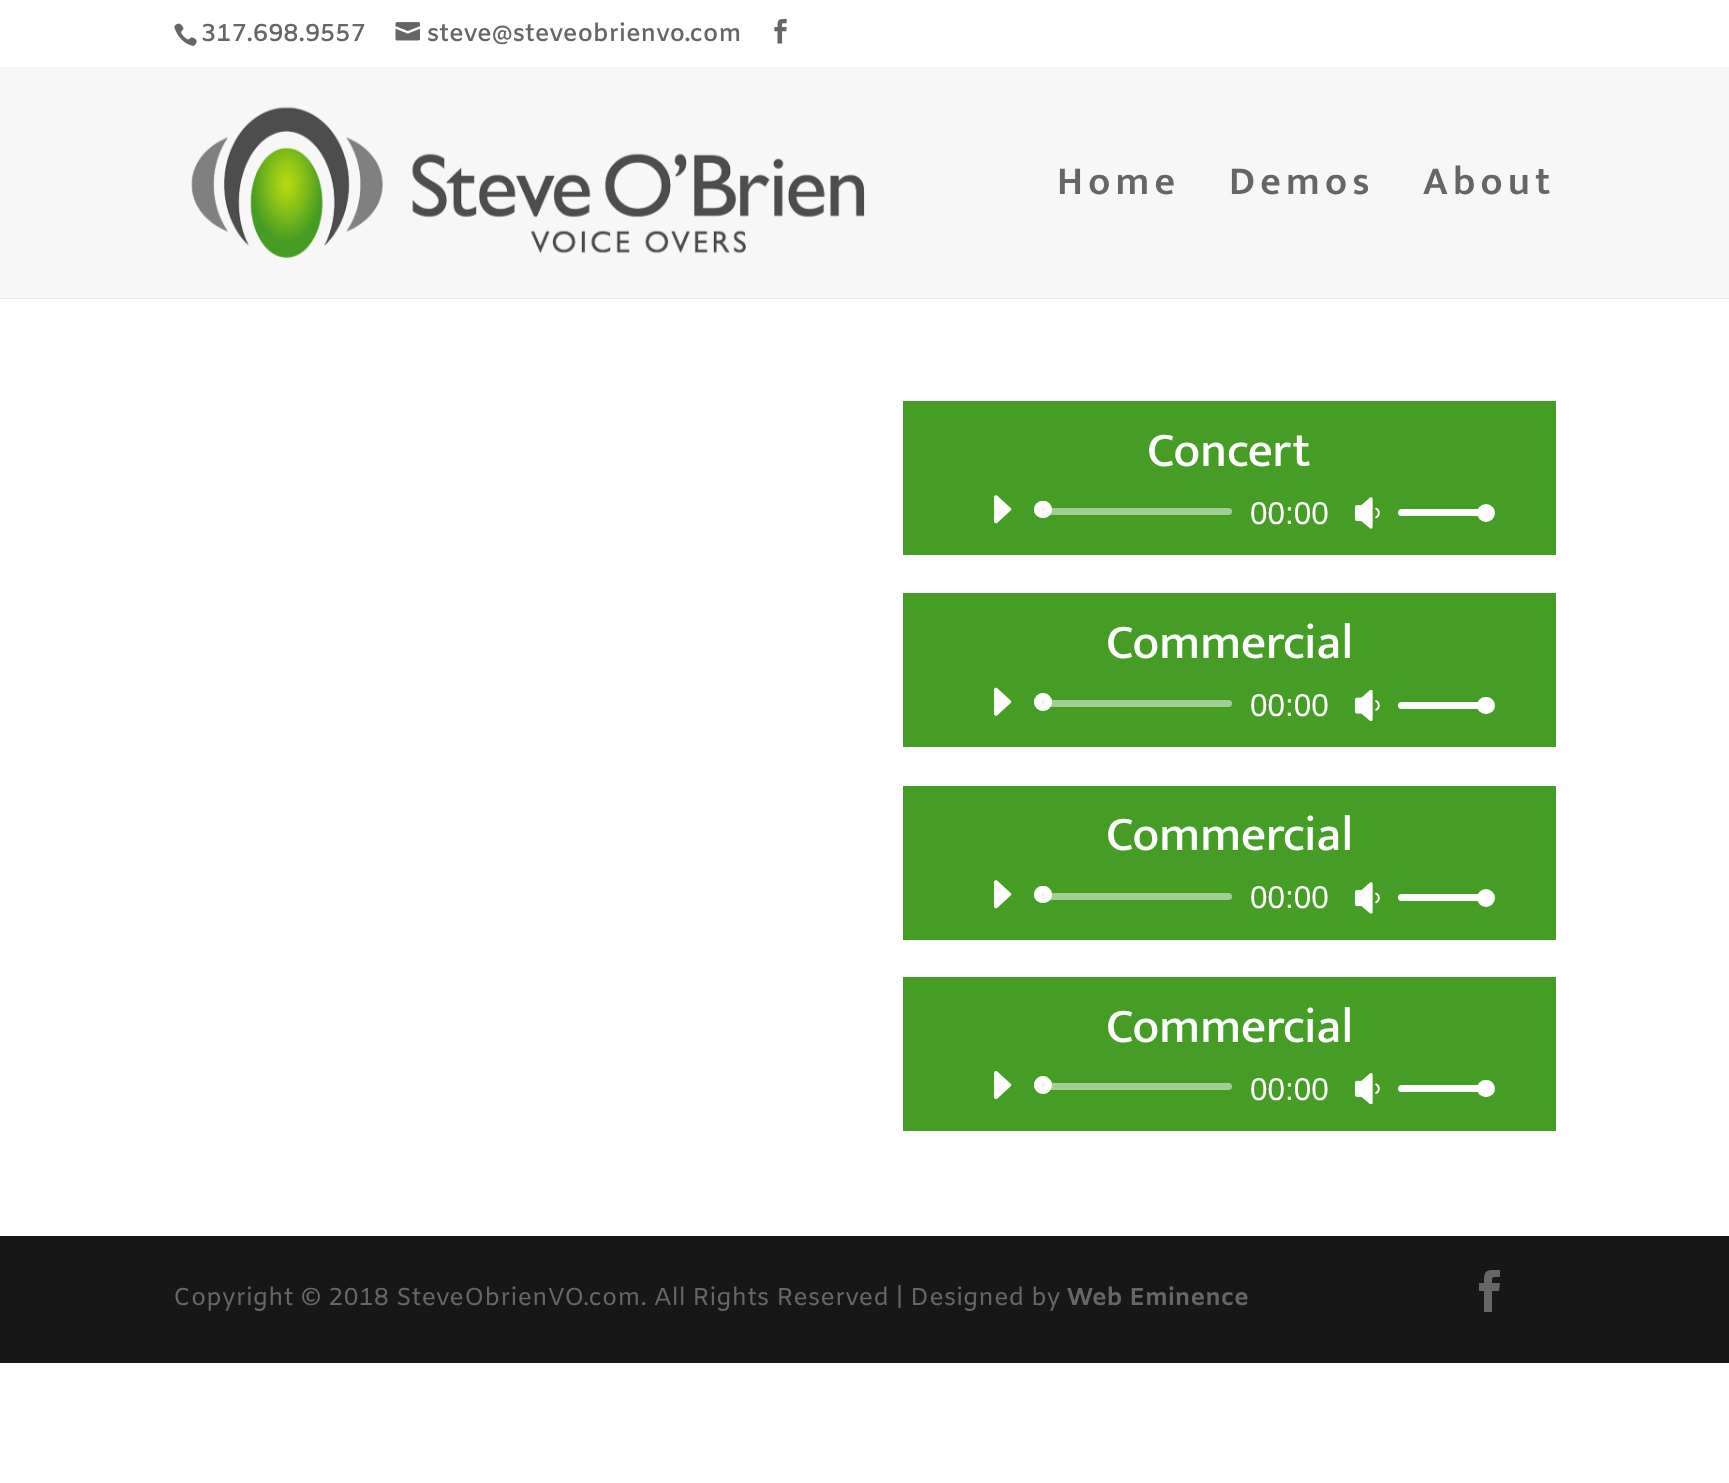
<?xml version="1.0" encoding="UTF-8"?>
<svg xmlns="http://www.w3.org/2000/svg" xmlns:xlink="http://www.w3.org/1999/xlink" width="1729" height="1483">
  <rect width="100%" height="100%" fill="#ffffff" />
  <image x="174" y="23" width="23" height="23" xlink:href="image1.png" />
  <image x="395" y="22" width="25" height="19" xlink:href="image2.png" />
  <image x="774" y="19" width="13" height="25" xlink:href="image3.png" />
  <rect y="298" width="1729" height="1" fill="#e6e6e6" />
  <rect y="67" width="1729" height="231" fill="#f7f7f7" />
  <image x="191" y="106" width="674" height="152" xlink:href="image4.png" />
  <rect x="903" y="401" width="653" height="154" fill="#459d25" />
  <image x="994" y="495" width="18" height="29" xlink:href="image5.png" />
  <rect x="1047" y="508" width="185" height="7" rx="3.5" fill="#a2ce92" />
  <rect x="1034" y="501" width="18" height="17" rx="8.5" fill="#ffffff" fill-opacity="0.9" />
  <rect x="1037.5" y="504.5" width="11" height="10" rx="5" fill="none" stroke="#ffffff" stroke-opacity="0.9" stroke-width="7" />
  <image x="1354" y="497" width="26" height="32" xlink:href="image6.png" />
  <rect x="1398" y="509" width="88" height="7" rx="3.5" fill="#ffffff" />
  <circle cx="1486" cy="513" r="9" fill="#ffffff" />
  <rect x="903" y="593" width="653" height="154" fill="#459d25" />
  <image x="994" y="687" width="18" height="29" xlink:href="image7.png" />
  <rect x="1047" y="700" width="185" height="7" rx="3.5" fill="#a2ce92" />
  <circle cx="1043" cy="702" r="9" fill="#ffffff" fill-opacity="0.9" />
  <circle cx="1043" cy="702" r="5.5" fill="none" stroke="#ffffff" stroke-opacity="0.9" stroke-width="7" />
  <image x="1354" y="690" width="26" height="31" xlink:href="image8.png" />
  <rect x="1398" y="702" width="88" height="7" rx="3.5" fill="#ffffff" />
  <rect x="1477" y="697" width="18" height="17" rx="8.5" fill="#ffffff" />
  <rect x="903" y="786" width="653" height="154" fill="#459d25" />
  <image x="994" y="880" width="18" height="29" xlink:href="image5.png" />
  <rect x="1047" y="893" width="185" height="7" rx="3.5" fill="#a2ce92" />
  <rect x="1034" y="886" width="18" height="17" rx="8.5" fill="#ffffff" fill-opacity="0.9" />
  <rect x="1037.5" y="889.5" width="11" height="10" rx="5" fill="none" stroke="#ffffff" stroke-opacity="0.9" stroke-width="7" />
  <image x="1354" y="882" width="26" height="32" xlink:href="image6.png" />
  <rect x="1398" y="894" width="88" height="7" rx="3.5" fill="#ffffff" />
  <circle cx="1486" cy="898" r="9" fill="#ffffff" />
  <rect x="903" y="977" width="653" height="154" fill="#459d25" />
  <image x="994" y="1071" width="18" height="28" xlink:href="image9.png" />
  <rect x="1047" y="1083" width="185" height="7" rx="3.5" fill="#a2ce92" />
  <circle cx="1043" cy="1085" r="9" fill="#ffffff" fill-opacity="0.9" />
  <circle cx="1043" cy="1085" r="5.5" fill="none" stroke="#ffffff" stroke-opacity="0.9" stroke-width="7" />
  <image x="1354" y="1073" width="26" height="31" xlink:href="image10.png" />
  <rect x="1398" y="1085" width="88" height="7" rx="3.5" fill="#ffffff" />
  <rect x="1477" y="1080" width="18" height="17" rx="8.5" fill="#ffffff" />
  <rect y="1236" width="1729" height="127" fill="#171717" />
  <path d="M 1484 1312 h 8 v -21 h 7 l 1 -8 h -8 c 0 -7 0 -6 8 -6 v -7 c -14 0 -16 -1 -16 13 h -5 v 8 h 5 z" fill="#666666" />
  <text x="201" y="41" style="font-family: Amiko; font-size: 24.5px; font-weight: 600; fill: #666666">317.698.9557</text>
  <text x="427" y="41" style="font-family: Amiko; font-size: 24.5px; font-weight: 600; fill: #666666">steve@steveobrienvo.com</text>
  <text x="1057" y="194" style="font-family: Mukta; font-size: 40px; font-weight: 600; letter-spacing: 5.25px; fill: #666666">Home</text>
  <text x="1229" y="194" style="font-family: Mukta; font-size: 40px; font-weight: 600; letter-spacing: 5.25px; fill: #666666">Demos</text>
  <text x="1423" y="194" style="font-family: Mukta; font-size: 40px; font-weight: 600; letter-spacing: 5.25px; fill: #666666">About</text>
  <text x="1147" y="466" style="font-family: Mukta; font-size: 49px; font-weight: 500; fill: #ffffff">Concert</text>
  <text x="1250" y="524" style="font-family: Liberation Sans; font-size: 31.5px; fill: #ffffff">00:00</text>
  <text x="1106" y="658" style="font-family: Mukta; font-size: 49px; font-weight: 500; fill: #ffffff">Commercial</text>
  <text x="1250" y="716" style="font-family: Liberation Sans; font-size: 31.5px; fill: #ffffff">00:00</text>
  <text x="1106" y="850" style="font-family: Mukta; font-size: 49px; font-weight: 500; fill: #ffffff">Commercial</text>
  <text x="1250" y="908" style="font-family: Liberation Sans; font-size: 31.5px; fill: #ffffff">00:00</text>
  <text x="1106" y="1042" style="font-family: Mukta; font-size: 49px; font-weight: 500; fill: #ffffff">Commercial</text>
  <text x="1250" y="1100" style="font-family: Liberation Sans; font-size: 31.5px; fill: #ffffff">00:00</text>
  <text x="173" y="1305" style="font-family: Amiko; font-size: 24.5px; fill: #666666">Copyright © 2018 SteveObrienVO.com. All Rights Reserved | Designed by</text>
  <text x="1067" y="1305" style="font-family: Amiko; font-size: 24.5px; font-weight: bold; fill: #666666">Web Eminence</text>
</svg>
